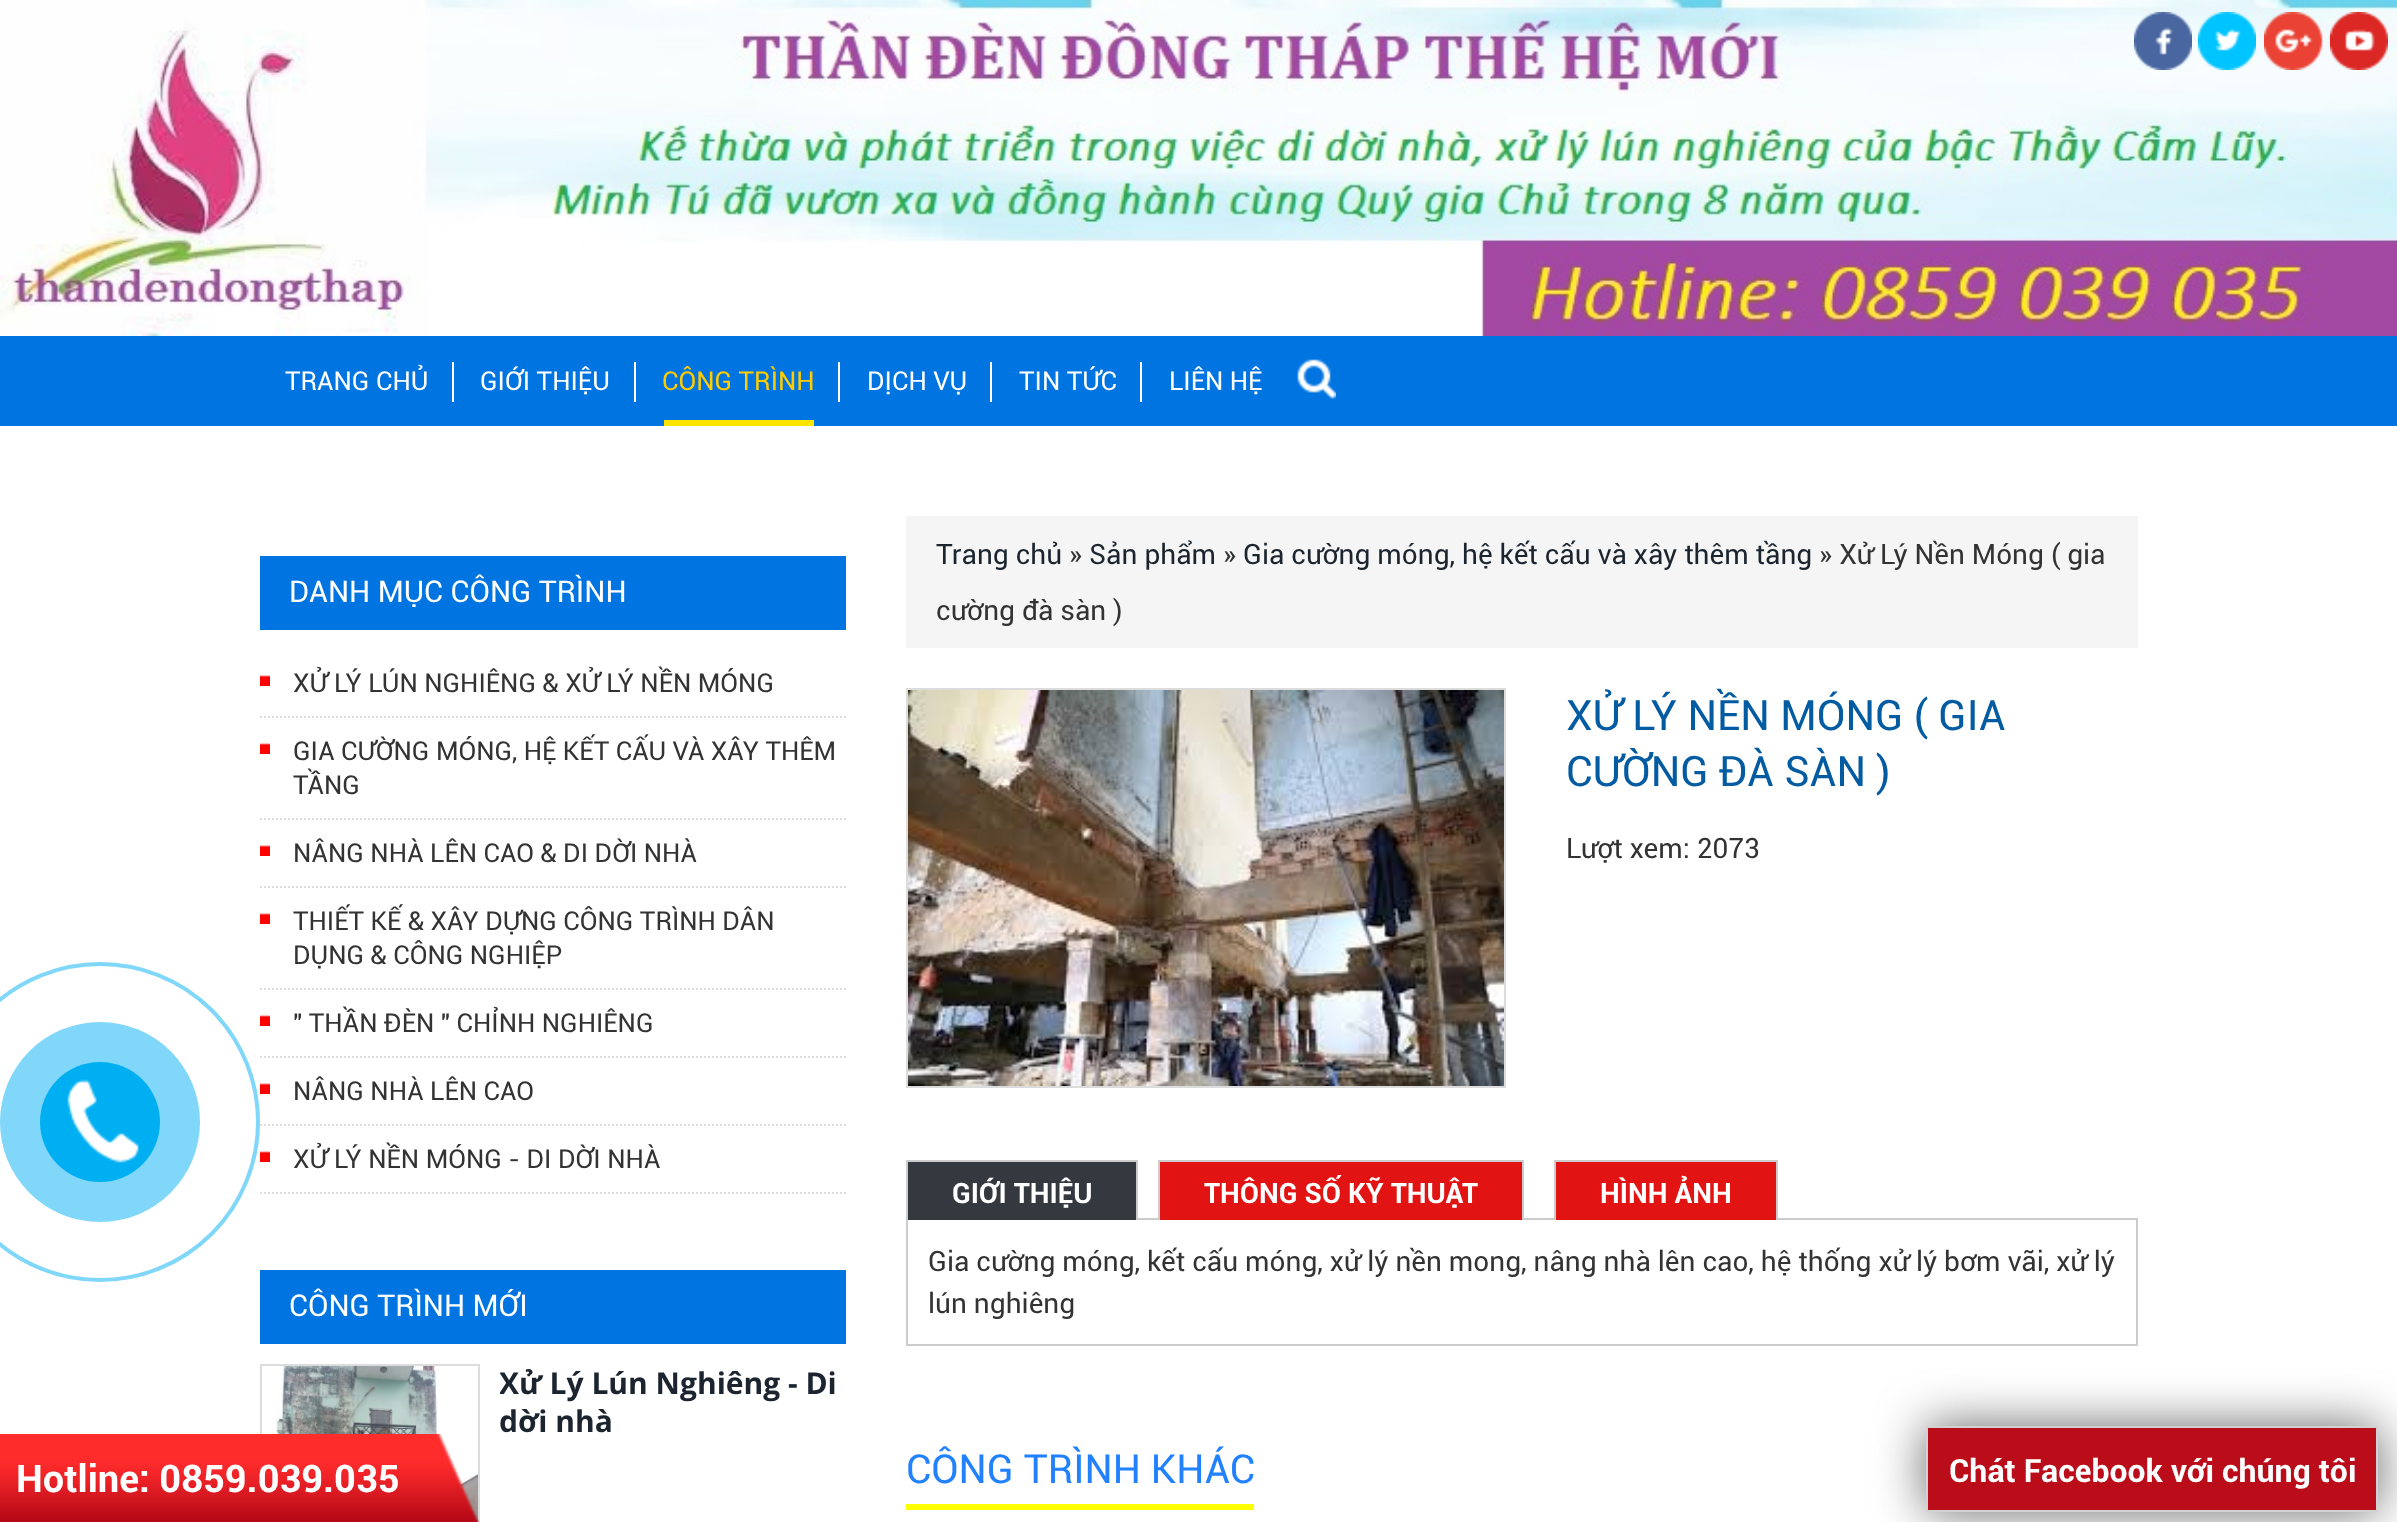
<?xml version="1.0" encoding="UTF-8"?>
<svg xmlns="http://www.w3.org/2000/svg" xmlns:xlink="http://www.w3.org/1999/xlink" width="2397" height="1522">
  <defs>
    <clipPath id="clip1"><rect x="500" y="1364" width="346" height="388" /></clipPath>
  </defs>
  <rect width="100%" height="100%" fill="#ffffff" />
  <rect y="336" width="2397" height="90" fill="#0074e0" />
  <image x="0" y="0" width="2397" height="336" xlink:href="image1.png" />
  <image x="2134" y="12" width="58" height="58" xlink:href="image2.png" />
  <image x="2198" y="12" width="58" height="58" xlink:href="image3.png" />
  <image x="2264" y="12" width="59" height="58" xlink:href="image4.png" />
  <image x="2330" y="12" width="58" height="58" xlink:href="image5.png" />
  <rect x="452" y="362" width="2" height="40" fill="#ffffff" />
  <rect x="634" y="362" width="2" height="40" fill="#ffffff" />
  <rect x="838" y="362" width="2" height="40" fill="#ffffff" />
  <rect x="664" y="420" width="150" height="6" fill="#ffe400" />
  <rect x="990" y="362" width="2" height="40" fill="#ffffff" />
  <rect x="1140" y="362" width="2" height="40" fill="#ffffff" />
  <image x="1297" y="359" width="39" height="40" xlink:href="image6.png" />
  <circle cx="100" cy="1122" r="158" fill="none" stroke="#80d7f9" stroke-width="4" />
  <circle cx="100" cy="1122" r="100" fill="#80d7f9" />
  <circle cx="100" cy="1122" r="60" fill="#00aff2" />
  <image x="67" y="1079" width="72" height="84" xlink:href="image7.png" />
  <rect x="260" y="556" width="586" height="74" fill="#0074e0" />
  <image x="260" y="675" width="10" height="11" xlink:href="image8.png" />
  <path d="M 260 717 h 586" fill="none" stroke="#dcdcdc" stroke-width="2" stroke-dasharray="2 2" />
  <image x="260" y="743" width="10" height="11" xlink:href="image8.png" />
  <path d="M 260 819 h 586" fill="none" stroke="#dcdcdc" stroke-width="2" stroke-dasharray="2 2" />
  <image x="260" y="845" width="10" height="11" xlink:href="image8.png" />
  <path d="M 260 887 h 586" fill="none" stroke="#dcdcdc" stroke-width="2" stroke-dasharray="2 2" />
  <image x="260" y="913" width="10" height="11" xlink:href="image8.png" />
  <path d="M 260 989 h 586" fill="none" stroke="#dcdcdc" stroke-width="2" stroke-dasharray="2 2" />
  <image x="260" y="1015" width="10" height="11" xlink:href="image8.png" />
  <path d="M 260 1057 h 586" fill="none" stroke="#dcdcdc" stroke-width="2" stroke-dasharray="2 2" />
  <image x="260" y="1083" width="10" height="11" xlink:href="image8.png" />
  <path d="M 260 1125 h 586" fill="none" stroke="#dcdcdc" stroke-width="2" stroke-dasharray="2 2" />
  <image x="260" y="1151" width="10" height="11" xlink:href="image8.png" />
  <path d="M 260 1193 h 586" fill="none" stroke="#dcdcdc" stroke-width="2" stroke-dasharray="2 2" />
  <rect x="260" y="1270" width="586" height="74" fill="#0074e0" />
  <rect x="261" y="1365" width="218" height="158" fill="none" stroke="#dcdcdc" stroke-width="2" />
  <image x="262" y="1366" width="216" height="156" xlink:href="image9.png" />
  <rect x="906" y="516" width="1232" height="132" fill="#f5f5f5" />
  <rect x="907" y="689" width="598" height="398" fill="none" stroke="#dcdcdc" stroke-width="2" />
  <image x="908" y="690" width="596" height="396" xlink:href="image10.png" />
  <rect x="907" y="1219" width="1230" height="126" fill="none" stroke="#cccccc" stroke-width="2" />
  <rect x="908" y="1162" width="228" height="58" fill="#34393f" />
  <rect x="906" y="1160" width="232" height="2" fill="#cccccc" />
  <rect x="1136" y="1160" width="2" height="60" fill="#cccccc" />
  <rect x="906" y="1160" width="2" height="60" fill="#cccccc" />
  <rect x="1160" y="1162" width="362" height="58" fill="#e11313" />
  <rect x="1158" y="1160" width="366" height="2" fill="#cccccc" />
  <rect x="1522" y="1160" width="2" height="60" fill="#cccccc" />
  <rect x="1158" y="1160" width="2" height="60" fill="#cccccc" />
  <rect x="1556" y="1162" width="220" height="58" fill="#e11313" />
  <rect x="1554" y="1160" width="224" height="2" fill="#cccccc" />
  <rect x="1776" y="1160" width="2" height="60" fill="#cccccc" />
  <rect x="1554" y="1160" width="2" height="60" fill="#cccccc" />
  <rect x="906" y="1504" width="348" height="6" fill="#ffff00" />
  <image x="0" y="1434" width="480" height="88" xlink:href="image11.png" />
  <rect x="1926" y="1426" width="452" height="86" fill="#666666" filter="blur(25px)" />
  <rect x="1927" y="1427" width="450" height="84" fill="none" stroke="#d1d1d1" stroke-width="2" />
  <rect x="1928" y="1428" width="448" height="82" fill="#bb0d19" />
  <text x="285" y="390" style="font-family: Roboto; font-size: 26px; fill: #ffffff">TRANG CHỦ</text>
  <text x="480" y="390" style="font-family: Roboto; font-size: 26px; fill: #ffffff">GIỚI THIỆU</text>
  <text x="662" y="390" style="font-family: Roboto; font-size: 26px; fill: #ffcc00">CÔNG TRÌNH</text>
  <text x="867" y="390" style="font-family: Roboto; font-size: 26px; fill: #ffffff">DỊCH VỤ</text>
  <text x="1019" y="390" style="font-family: Roboto; font-size: 26px; fill: #ffffff">TIN TỨC</text>
  <text x="1169" y="390" style="font-family: Roboto; font-size: 26px; fill: #ffffff">LIÊN HỆ</text>
  <text x="289" y="602" style="font-family: Roboto; font-size: 30px; fill: #ffffff">DANH MỤC CÔNG TRÌNH</text>
  <text x="293" y="692" style="font-family: Roboto; font-size: 26px; fill: #333333">XỬ LÝ LÚN NGHIÊNG &amp; XỬ LÝ NỀN MÓNG</text>
  <text x="293" y="760" style="font-family: Roboto; font-size: 26px; fill: #333333">GIA CƯỜNG MÓNG, HỆ KẾT CẤU VÀ XÂY THÊM</text>
  <text x="293" y="794" style="font-family: Roboto; font-size: 26px; fill: #333333">TẦNG</text>
  <text x="293" y="862" style="font-family: Roboto; font-size: 26px; fill: #333333">NÂNG NHÀ LÊN CAO &amp; DI DỜI NHÀ</text>
  <text x="293" y="930" style="font-family: Roboto; font-size: 26px; fill: #333333">THIẾT KẾ &amp; XÂY DỰNG CÔNG TRÌNH DÂN</text>
  <text x="293" y="964" style="font-family: Roboto; font-size: 26px; fill: #333333">DỤNG &amp; CÔNG NGHIỆP</text>
  <text x="293" y="1032" style="font-family: Roboto; font-size: 26px; fill: #333333">" THẦN ĐÈN " CHỈNH NGHIÊNG</text>
  <text x="293" y="1100" style="font-family: Roboto; font-size: 26px; fill: #333333">NÂNG NHÀ LÊN CAO</text>
  <text x="293" y="1168" style="font-family: Roboto; font-size: 26px; fill: #333333">XỬ LÝ NỀN MÓNG - DI DỜI NHÀ</text>
  <text x="289" y="1316" style="font-family: Roboto; font-size: 30px; fill: #ffffff">CÔNG TRÌNH MỚI</text>
  <g clip-path="url(#clip1)">
    <text x="499" y="1394" style="font-family: Open Sans; font-size: 30px; font-weight: bold; fill: #1b242f">Xử Lý Lún Nghiêng - Di</text>
  </g>
  <text x="499" y="1432" style="font-family: Open Sans; font-size: 30px; font-weight: bold; fill: #1b242f">dời nhà</text>
  <text x="936" y="564" style="font-family: Roboto; font-size: 28px; fill: #1b242f">Trang chủ</text>
  <text x="1069" y="564" style="font-family: Roboto; font-size: 28px; fill: #333333">»</text>
  <text x="1089" y="564" style="font-family: Roboto; font-size: 28px; fill: #1b242f">Sản phẩm</text>
  <text x="1223" y="564" style="font-family: Roboto; font-size: 28px; fill: #333333">»</text>
  <text x="1243" y="564" style="font-family: Roboto; font-size: 28px; fill: #1b242f">Gia cường móng, hệ kết cấu và xây thêm tầng</text>
  <text x="1819" y="564" style="font-family: Roboto; font-size: 28px; fill: #333333">» Xử Lý Nền Móng ( gia</text>
  <text x="936" y="620" style="font-family: Roboto; font-size: 28px; fill: #333333">cường đà sàn )</text>
  <text x="1566" y="730" style="font-family: Roboto; font-size: 42px; fill: #035ba2">XỬ LÝ NỀN MÓNG ( GIA</text>
  <text x="1566" y="786" style="font-family: Roboto; font-size: 42px; fill: #035ba2">CƯỜNG ĐÀ SÀN )</text>
  <text x="1566" y="858" style="font-family: Roboto; font-size: 28px; fill: #333333">Lượt xem: 2073</text>
  <text x="952" y="1203" style="font-family: Roboto; font-size: 28px; font-weight: bold; fill: #ffffff">GIỚI THIỆU</text>
  <text x="1204" y="1203" style="font-family: Roboto; font-size: 28px; font-weight: bold; fill: #ffffff">THÔNG SỐ KỸ THUẬT</text>
  <text x="1600" y="1203" style="font-family: Roboto; font-size: 28px; font-weight: bold; fill: #ffffff">HÌNH ẢNH</text>
  <text x="928" y="1271" style="font-family: Roboto; font-size: 28px; fill: #333333">Gia cường móng, kết cấu móng, xử lý nền mong, nâng nhà lên cao, hệ thống xử lý bơm vãi, xử lý</text>
  <text x="928" y="1313" style="font-family: Roboto; font-size: 28px; fill: #333333">lún nghiêng</text>
  <text x="906" y="1483" style="font-family: Roboto; font-size: 40px; fill: #2181fe">CÔNG TRÌNH KHÁC</text>
  <text x="16" y="1492" style="font-family: Roboto; font-size: 38px; font-weight: bold; fill: #ffffff">Hotline: 0859.039.035</text>
  <text x="1949" y="1482" style="font-family: Roboto; font-size: 32px; font-weight: bold; fill: #ffffff">Chát Facebook với chúng tôi</text>
</svg>
